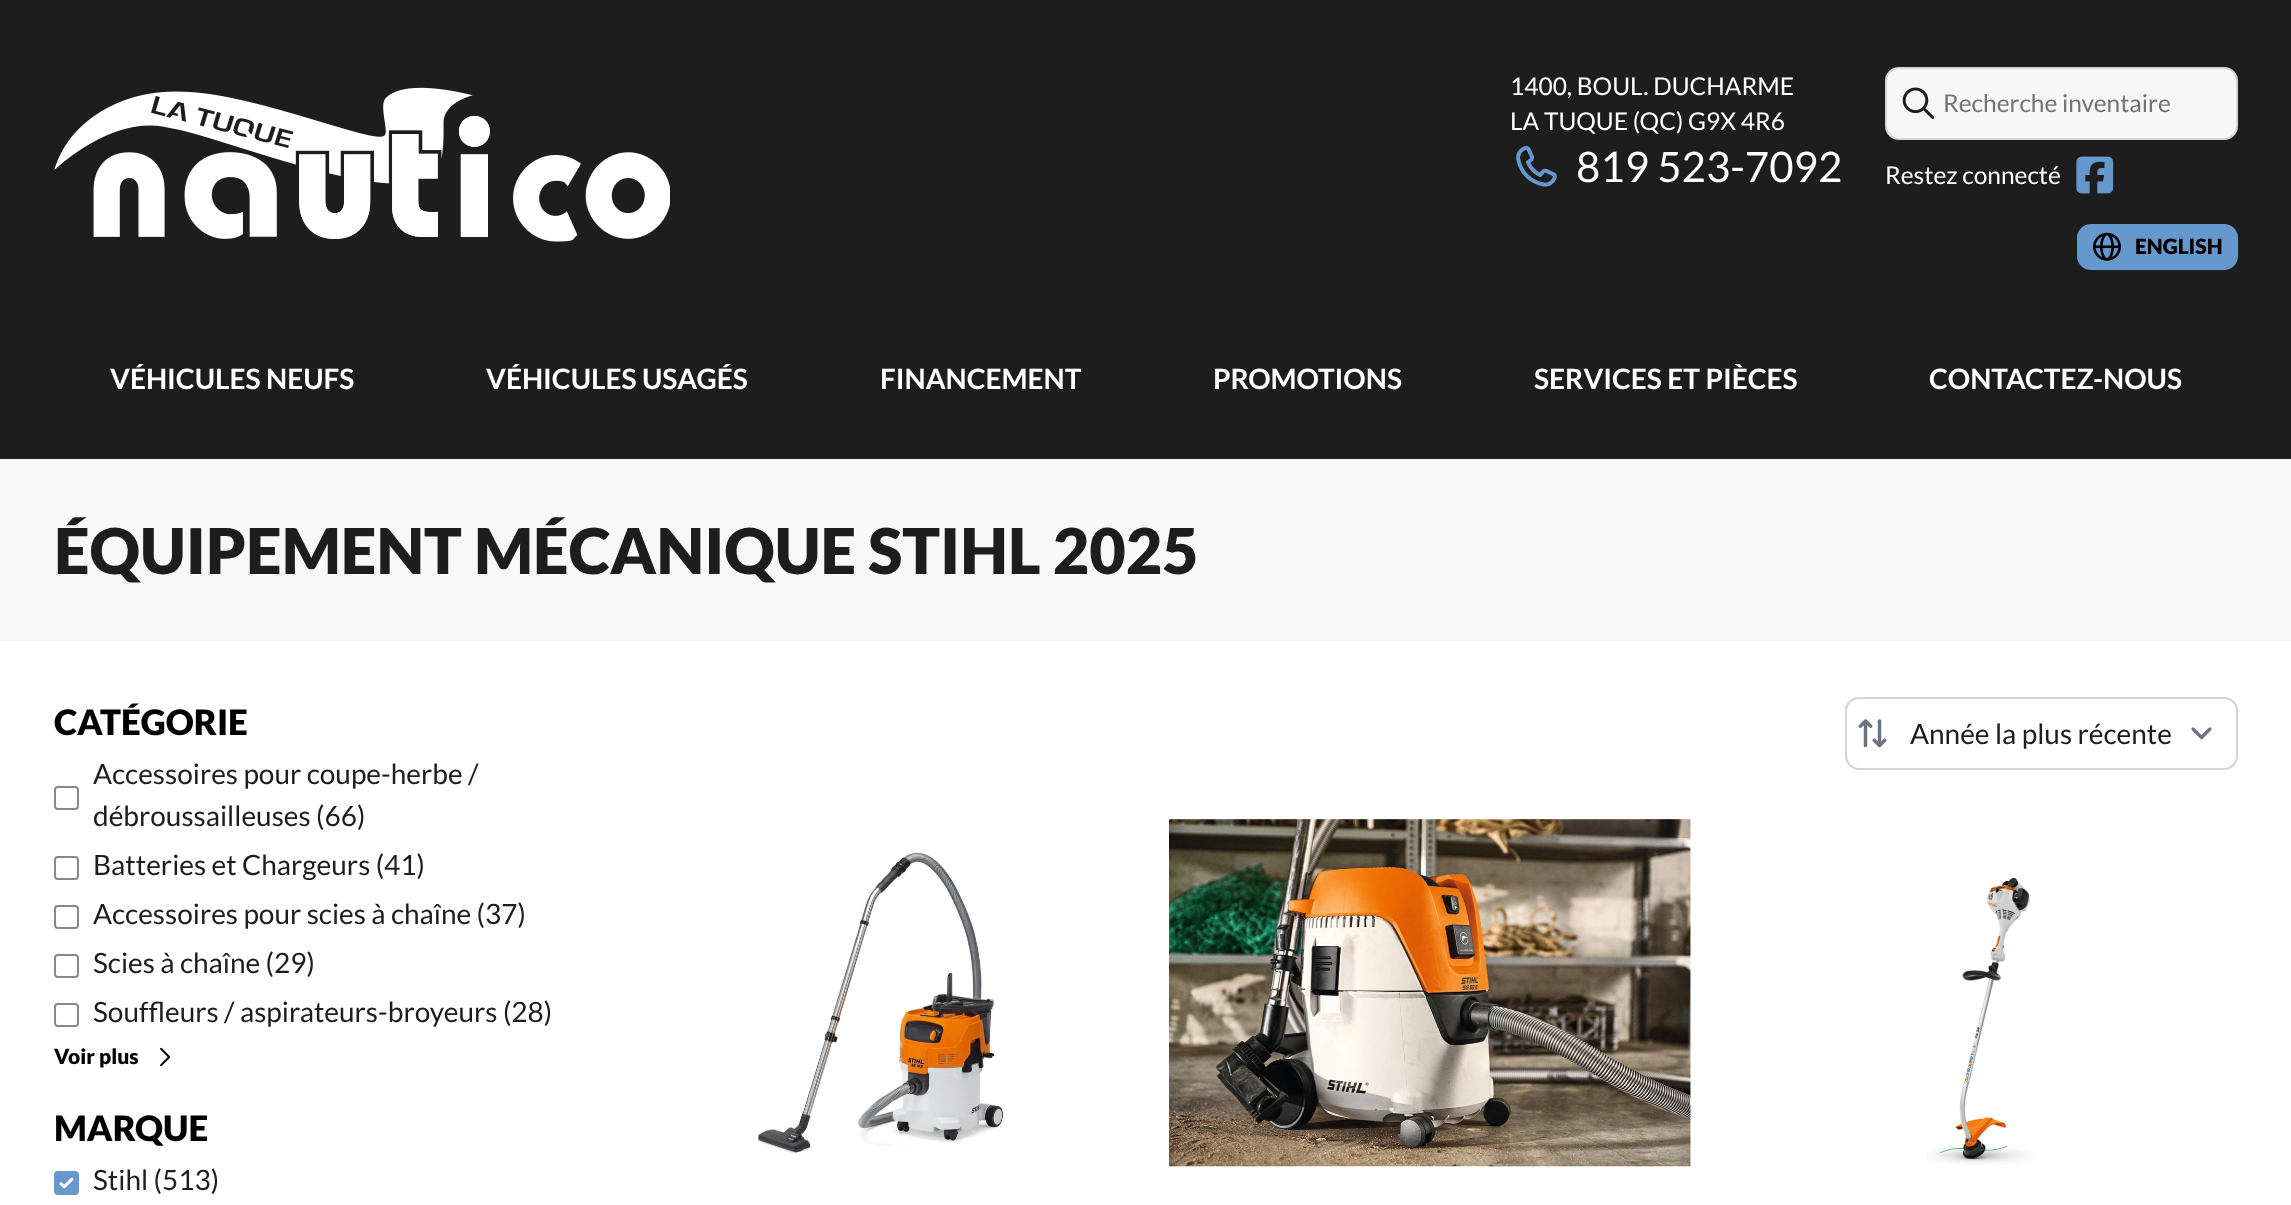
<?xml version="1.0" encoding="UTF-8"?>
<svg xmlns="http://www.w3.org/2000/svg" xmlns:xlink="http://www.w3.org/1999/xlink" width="2291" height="1205">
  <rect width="100%" height="100%" fill="#ffffff" />
  <rect width="2291" height="459" fill="#1d1d1d" />
  <image x="54" y="87" width="616" height="155" xlink:href="image1.png" />
  <image x="1516" y="145" width="41" height="42" xlink:href="image2.png" />
  <rect x="1886" y="68" width="351" height="71" rx="13" fill="#f7f7f7" stroke="#d4d4d4" stroke-width="2" />
  <image x="1902" y="87" width="33" height="32" xlink:href="image3.png" />
  <image x="2076" y="156" width="38" height="38" xlink:href="image4.png" />
  <rect x="2078" y="225" width="159" height="44" rx="13" fill="#6698ce" stroke="#6698ce" stroke-width="2" />
  <image x="2093" y="232" width="28" height="29" xlink:href="image5.png" />
  <rect y="459" width="2291" height="182" fill="#f8f8f8" />
  <rect x="55" y="787" width="23" height="22" rx="3" fill="none" stroke="#888888" stroke-width="2" />
  <rect x="55" y="857" width="23" height="22" rx="3" fill="none" stroke="#888888" stroke-width="2" />
  <rect x="55" y="906" width="23" height="22" rx="3" fill="none" stroke="#888888" stroke-width="2" />
  <rect x="55" y="955" width="23" height="22" rx="3" fill="none" stroke="#888888" stroke-width="2" />
  <rect x="55" y="1004" width="23" height="22" rx="3" fill="none" stroke="#888888" stroke-width="2" />
  <image x="160" y="1047" width="11" height="20" xlink:href="image6.png" />
  <rect x="54" y="1171" width="25" height="24" rx="4" fill="#6698ce" />
  <image x="59" y="1177" width="15" height="12" xlink:href="image7.png" />
  <path d="M 2193 729 l 8.5 8.5 l 8.5 -8.5" fill="none" stroke="#6b7280" stroke-width="3.2" stroke-linecap="round" stroke-linejoin="round" />
  <rect x="1846" y="698" width="391" height="71" rx="13" fill="none" stroke="#d4d4d4" stroke-width="2" />
  <image x="1858" y="719" width="29" height="29" xlink:href="image8.png" />
  <image x="758" y="852" width="246" height="302" xlink:href="image9.png" />
  <image x="1169" y="819" width="522" height="348" xlink:href="image10.png" />
  <image x="1926" y="877" width="109" height="288" xlink:href="image11.png" />
  <text x="1510" y="95" style="font-family: Lato; font-size: 24.5px; fill: #ffffff">1400, BOUL. DUCHARME</text>
  <text x="1510" y="130" style="font-family: Lato; font-size: 24.5px; fill: #ffffff">LA TUQUE (QC) G9X 4R6</text>
  <text x="1576" y="182" style="font-family: Lato; font-size: 42px; fill: #ffffff">819 523-7092</text>
  <text x="1943" y="112" style="font-family: Lato; font-size: 24.5px; fill: #737373">Recherche inventaire</text>
  <text x="1885" y="184" style="font-family: Lato; font-size: 24.5px; fill: #ffffff">Restez connecté</text>
  <text x="2135" y="254" style="font-family: Lato; font-size: 21px; font-weight: 900; fill: #000000">ENGLISH</text>
  <text x="110" y="389" style="font-family: Lato; font-size: 28px; font-weight: bold; fill: #ffffff">VÉHICULES NEUFS</text>
  <text x="486" y="389" style="font-family: Lato; font-size: 28px; font-weight: bold; fill: #ffffff">VÉHICULES USAGÉS</text>
  <text x="880" y="389" style="font-family: Lato; font-size: 28px; font-weight: bold; fill: #ffffff">FINANCEMENT</text>
  <text x="1213" y="389" style="font-family: Lato; font-size: 28px; font-weight: bold; fill: #ffffff">PROMOTIONS</text>
  <text x="1534" y="389" style="font-family: Lato; font-size: 28px; font-weight: bold; fill: #ffffff">SERVICES ET PIÈCES</text>
  <text x="1929" y="389" style="font-family: Lato; font-size: 28px; font-weight: bold; fill: #ffffff">CONTACTEZ-NOUS</text>
  <text x="54" y="574" style="font-family: Lato; font-size: 63px; font-weight: 900; fill: #1d1d1d">ÉQUIPEMENT MÉCANIQUE STIHL 2025</text>
  <text x="54" y="735" style="font-family: Lato; font-size: 35px; font-weight: 900; fill: #000000">CATÉGORIE</text>
  <text x="93" y="784" style="font-family: Lato; font-size: 28px; fill: #1d1d1d">Accessoires pour coupe-herbe /</text>
  <text x="93" y="826" style="font-family: Lato; font-size: 28px; fill: #1d1d1d">débroussailleuses (66)</text>
  <text x="93" y="875" style="font-family: Lato; font-size: 28px; fill: #1d1d1d">Batteries et Chargeurs (41)</text>
  <text x="93" y="924" style="font-family: Lato; font-size: 28px; fill: #1d1d1d">Accessoires pour scies à chaîne (37)</text>
  <text x="93" y="973" style="font-family: Lato; font-size: 28px; fill: #1d1d1d">Scies à chaîne (29)</text>
  <text x="93" y="1022" style="font-family: Lato; font-size: 28px; fill: #1d1d1d">Souffleurs / aspirateurs-broyeurs (28)</text>
  <text x="54" y="1064" style="font-family: Lato; font-size: 21px; font-weight: 900; fill: #000000">Voir plus</text>
  <text x="54" y="1141" style="font-family: Lato; font-size: 35px; font-weight: 900; fill: #000000">MARQUE</text>
  <text x="93" y="1190" style="font-family: Lato; font-size: 28px; fill: #1d1d1d">Stihl (513)</text>
  <text x="1910" y="744" style="font-family: Lato; font-size: 28px; fill: #1d1d1d">Année la plus récente</text>
</svg>
